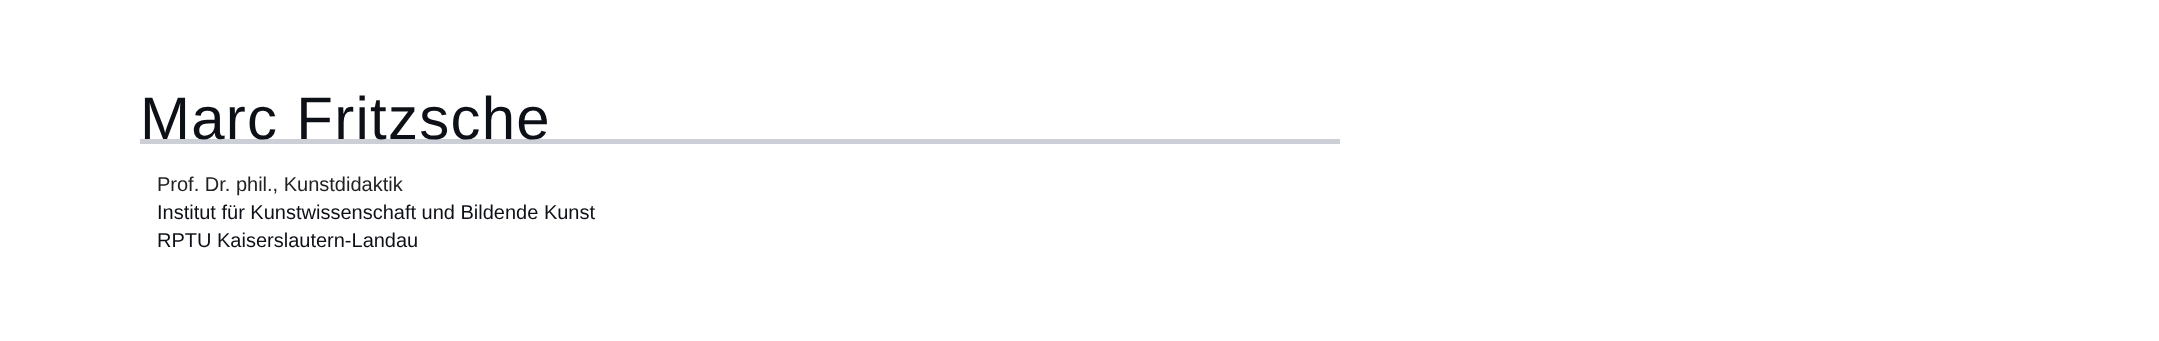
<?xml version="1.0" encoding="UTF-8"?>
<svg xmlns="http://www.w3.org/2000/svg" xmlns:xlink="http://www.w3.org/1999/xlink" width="2159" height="341">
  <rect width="100%" height="100%" fill="#ffffff" />
  <rect x="140" y="139" width="1200" height="5" fill="#ccd0d6" />
  <text x="140" y="139" style="font-family: Liberation Sans; font-size: 60px; letter-spacing: 1.25px; fill: #0d1117">Marc Fritzsche</text>
  <text x="157" y="191" style="font-family: Liberation Sans; font-size: 20px; fill: #222222">Prof. Dr. phil., Kunstdidaktik</text>
  <text x="157" y="219" style="font-family: Liberation Sans; font-size: 20px; fill: #0d1117">Institut für Kunstwissenschaft und Bildende Kunst</text>
  <text x="157" y="247" style="font-family: Liberation Sans; font-size: 20px; fill: #0d1117">RPTU Kaiserslautern-Landau</text>
</svg>
